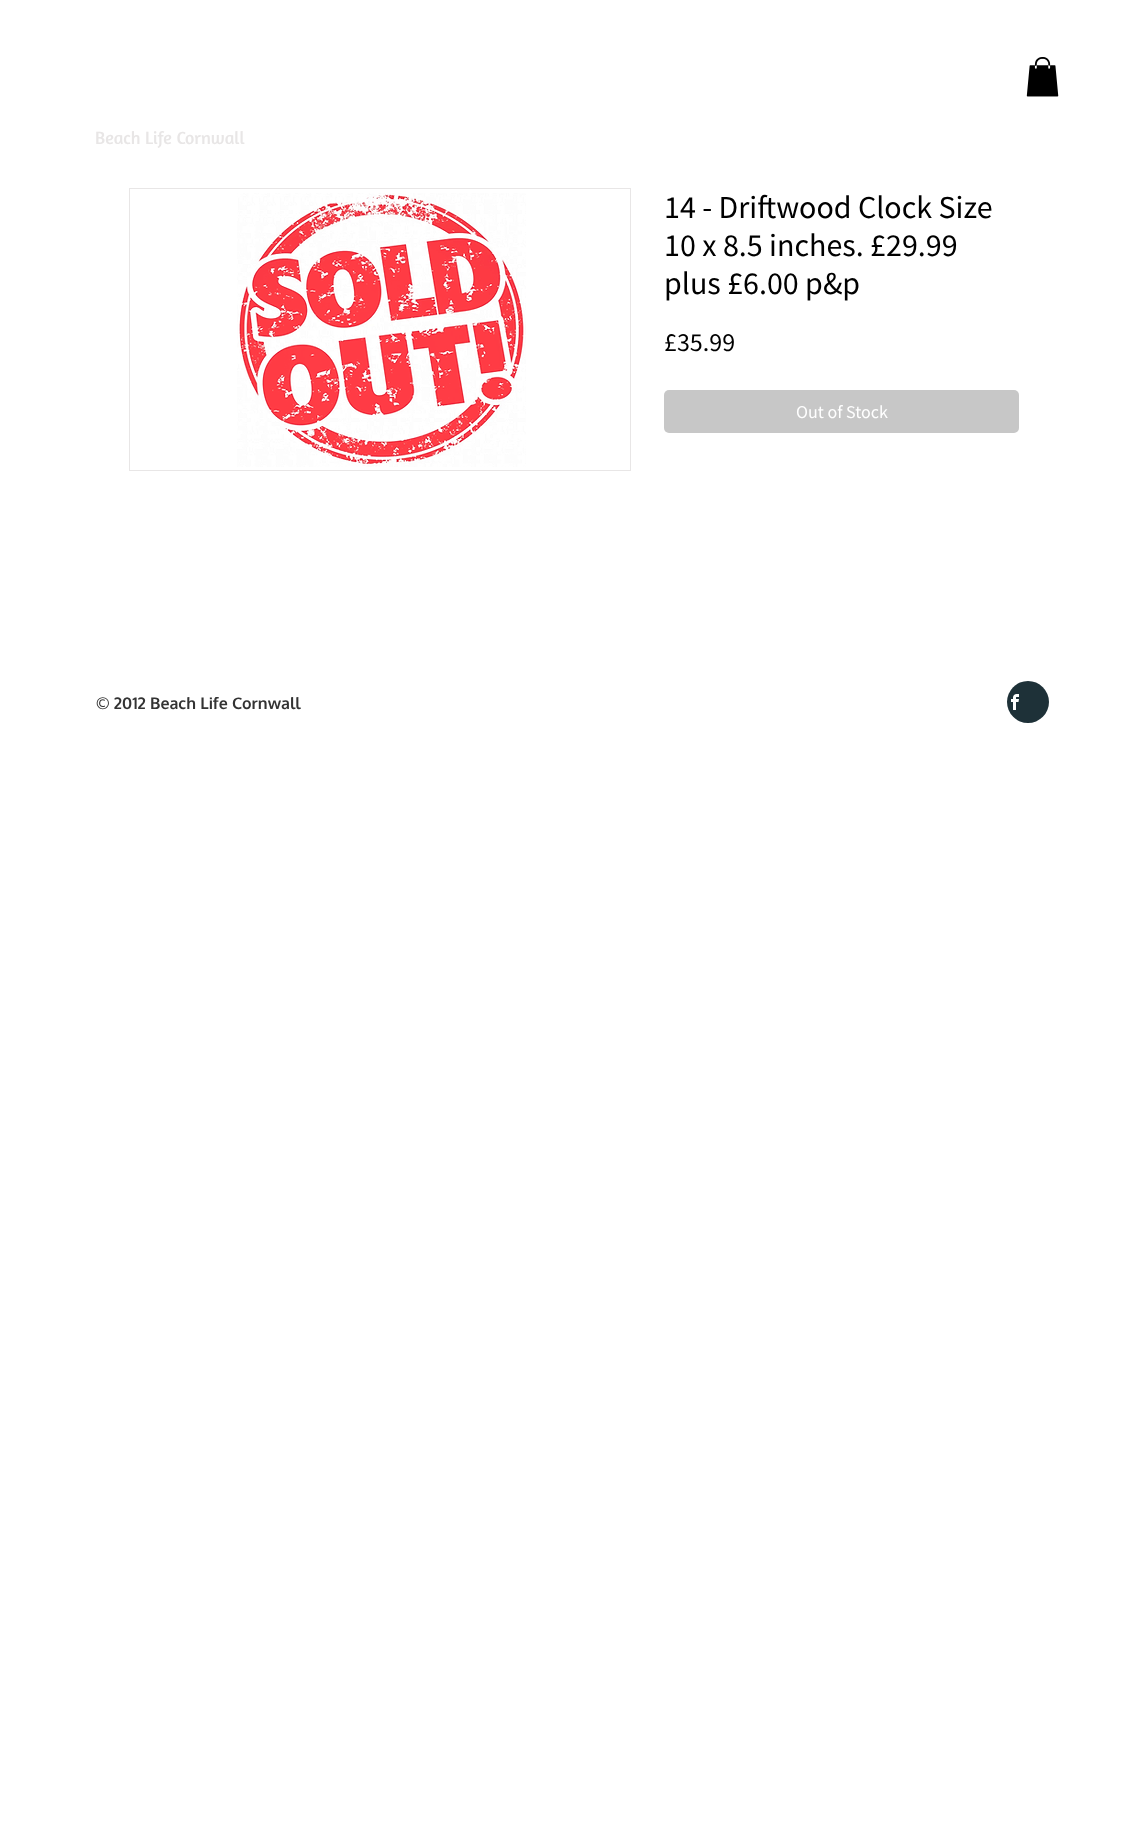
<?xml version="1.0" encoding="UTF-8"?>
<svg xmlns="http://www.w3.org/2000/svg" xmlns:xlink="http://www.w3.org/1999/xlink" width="1148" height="1834">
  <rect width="100%" height="100%" fill="#ffffff" />
  <image x="1026" y="57" width="33" height="40" xlink:href="image1.png" />
  <rect x="129.5" y="188.5" width="501" height="282" fill="none" stroke="#e8e6e6" />
  <image x="237" y="193" width="289" height="274" xlink:href="image2.png" />
  <rect x="664" y="390" width="355" height="43" rx="5" fill="#c7c7c7" />
  <circle cx="1028" cy="702" r="21" fill="#1e3138" />
  <image x="1011" y="694" width="8" height="16" xlink:href="image3.png" />
  <text x="95" y="144" style="font-family: Amaranth; font-size: 18px; fill: #e8e6e6">Beach Life Cornwall</text>
  <text x="664" y="218" style="font-family: Source Sans Pro; font-size: 32px; fill: #000000">14 - Driftwood Clock Size</text>
  <text x="664" y="256" style="font-family: Source Sans Pro; font-size: 32px; fill: #000000">10 x 8.5 inches. £29.99</text>
  <text x="664" y="294" style="font-family: Source Sans Pro; font-size: 32px; fill: #000000">plus £6.00 p&amp;p</text>
  <text x="664" y="351" style="font-family: Source Sans Pro; font-size: 26px; fill: #000000">£35.99</text>
  <text x="796" y="418" style="font-family: Source Sans Pro; font-size: 18px; fill: #ffffff">Out of Stock</text>
  <text x="96" y="709" style="font-family: Oxygen; font-size: 16px; font-weight: bold; fill: #333333">© 2012 Beach Life Cornwall</text>
</svg>
